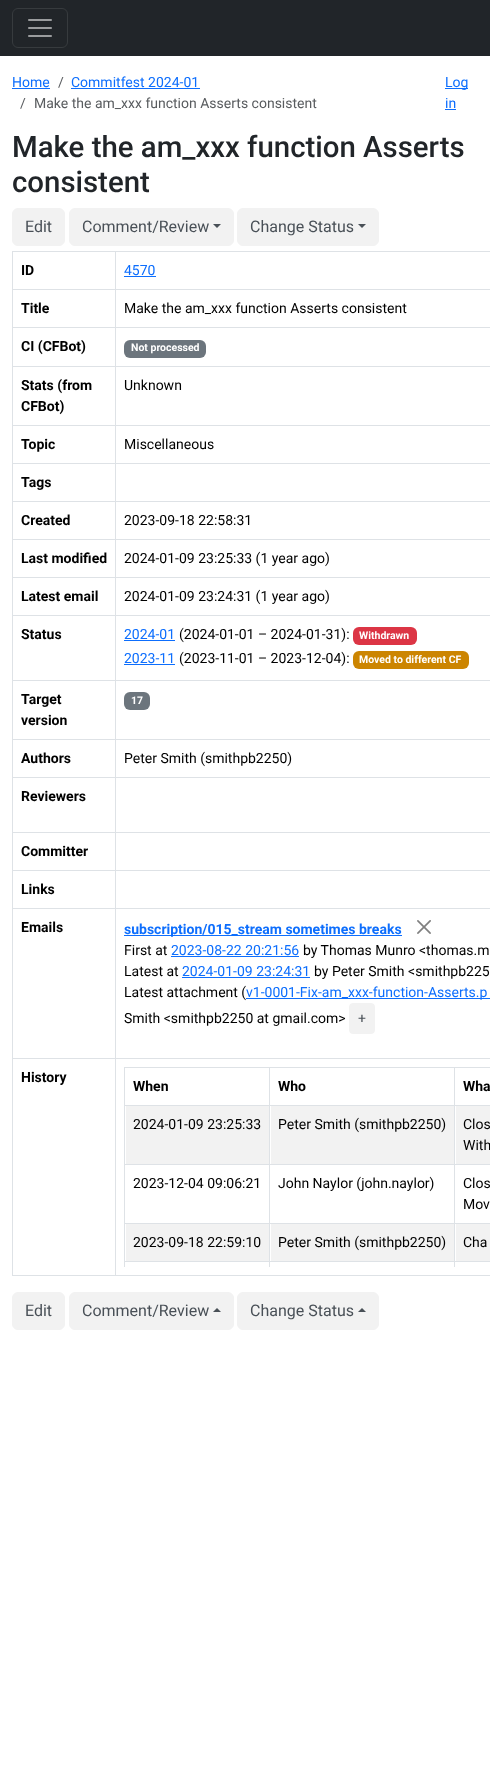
<?xml version="1.0" encoding="UTF-8"?>
<svg xmlns="http://www.w3.org/2000/svg" xmlns:xlink="http://www.w3.org/1999/xlink" width="490" height="1782">
  <rect width="100%" height="100%" fill="#ffffff" />
  <rect width="490" height="56" fill="#212529" />
  <rect x="12.5" y="8.5" width="55" height="39" rx="5.5" fill="none" stroke="#373b3e" />
  <image x="28" y="19" width="24" height="18" xlink:href="image1.png" />
  <rect x="12" y="88" width="38" height="1" fill="#0d6efd" />
  <rect x="71" y="88" width="129" height="1" fill="#0d6efd" />
  <rect x="445" y="88" width="23" height="1" fill="#0d6efd" />
  <rect x="445" y="109" width="11" height="1" fill="#0d6efd" />
  <rect x="12.5" y="208.5" width="52" height="37" rx="5.5" fill="#f2f2f2" stroke="#f2f2f2" />
  <rect x="69.5" y="208.5" width="164" height="37" rx="5.5" fill="#f2f2f2" stroke="#f2f2f2" />
  <path d="M 213 224 h 8 l -4 4 z" fill="#495057" />
  <rect x="237.5" y="208.5" width="141" height="37" rx="5.5" fill="#f2f2f2" stroke="#f2f2f2" />
  <path d="M 358 224 h 8 l -4 4 z" fill="#495057" />
  <rect x="12" y="251" width="478" height="1" fill="#dee2e6" />
  <rect x="124" y="276" width="32" height="1" fill="#0d6efd" />
  <rect x="12" y="289" width="478" height="1" fill="#dee2e6" />
  <rect x="12" y="327" width="478" height="1" fill="#dee2e6" />
  <rect x="124" y="340" width="82" height="18" rx="6" fill="#6c757d" />
  <rect x="12" y="366" width="478" height="1" fill="#dee2e6" />
  <rect x="12" y="425" width="478" height="1" fill="#dee2e6" />
  <rect x="12" y="463" width="478" height="1" fill="#dee2e6" />
  <rect x="12" y="501" width="478" height="1" fill="#dee2e6" />
  <rect x="12" y="539" width="478" height="1" fill="#dee2e6" />
  <rect x="12" y="577" width="478" height="1" fill="#dee2e6" />
  <rect x="12" y="615" width="478" height="1" fill="#dee2e6" />
  <rect x="124" y="640" width="51" height="1" fill="#0d6efd" />
  <rect x="353" y="627" width="64" height="18" rx="6" fill="#dc3545" />
  <rect x="124" y="664" width="51" height="1" fill="#0d6efd" />
  <rect x="353" y="651" width="116" height="18" rx="6" fill="#cc8501" />
  <rect x="12" y="680" width="478" height="1" fill="#dee2e6" />
  <rect x="124" y="692" width="26" height="18" rx="6" fill="#6c757d" />
  <rect x="12" y="739" width="478" height="1" fill="#dee2e6" />
  <rect x="12" y="777" width="478" height="1" fill="#dee2e6" />
  <rect x="12" y="832" width="478" height="1" fill="#dee2e6" />
  <rect x="12" y="870" width="478" height="1" fill="#dee2e6" />
  <rect x="12" y="908" width="478" height="1" fill="#dee2e6" />
  <rect x="124" y="935" width="278" height="1" fill="#0d6efd" />
  <image x="417" y="920" width="14" height="14" xlink:href="image2.png" />
  <rect x="171" y="956" width="128" height="1" fill="#0d6efd" />
  <rect x="182" y="977" width="128" height="1" fill="#0d6efd" />
  <rect x="246" y="998" width="244" height="1" fill="#0d6efd" />
  <rect x="349.5" y="1003.5" width="25" height="30" rx="3.5" fill="#f2f2f2" stroke="#f2f2f2" />
  <rect x="12" y="1058" width="478" height="1" fill="#dee2e6" />
  <rect x="12" y="1275" width="478" height="1" fill="#dee2e6" />
  <rect x="12" y="251" width="1" height="1025" fill="#dee2e6" />
  <rect x="115" y="251" width="1" height="1025" fill="#dee2e6" />
  <rect x="124" y="1067" width="366" height="1" fill="#dee2e6" />
  <rect x="124" y="1261" width="366" height="1" fill="#dee2e6" />
  <rect x="124" y="1105" width="366" height="1" fill="#dee2e6" />
  <rect x="124" y="1164" width="366" height="1" fill="#dee2e6" />
  <rect x="124" y="1223" width="366" height="1" fill="#dee2e6" />
  <rect x="124" y="1067" width="1" height="200" fill="#dee2e6" />
  <rect x="269" y="1067" width="1" height="200" fill="#dee2e6" />
  <rect x="454" y="1067" width="1" height="200" fill="#dee2e6" />
  <rect x="126" y="1106" width="143" height="58" fill="#f2f2f2" />
  <rect x="271" y="1106" width="183" height="58" fill="#f2f2f2" />
  <rect x="456" y="1106" width="34" height="58" fill="#f2f2f2" />
  <rect x="126" y="1224" width="143" height="37" fill="#f2f2f2" />
  <rect x="271" y="1224" width="183" height="37" fill="#f2f2f2" />
  <rect x="456" y="1224" width="34" height="37" fill="#f2f2f2" />
  <rect x="12.5" y="1292.5" width="52" height="37" rx="5.5" fill="#f2f2f2" stroke="#f2f2f2" />
  <rect x="69.5" y="1292.5" width="164" height="37" rx="5.5" fill="#f2f2f2" stroke="#f2f2f2" />
  <path d="M 221 1312 h -8 l 4 -4 z" fill="#495057" />
  <rect x="237.5" y="1292.5" width="141" height="37" rx="5.5" fill="#f2f2f2" stroke="#f2f2f2" />
  <path d="M 366 1312 h -8 l 4 -4 z" fill="#495057" />
  <text x="12" y="87" style="font-family: Roboto; font-size: 14px; fill: #0d6efd">Home</text>
  <text x="58" y="87" style="font-family: Roboto; font-size: 14px; fill: #595c5f">/</text>
  <text x="71" y="87" style="font-family: Roboto; font-size: 14px; fill: #0d6efd">Commitfest 2024-01</text>
  <text x="20" y="108" style="font-family: Roboto; font-size: 14px; fill: #595c5f">/</text>
  <text x="34" y="108" style="font-family: Roboto; font-size: 14px; fill: #595c5f">Make the am_xxx function Asserts consistent</text>
  <text x="445" y="87" style="font-family: Roboto; font-size: 14px; fill: #0d6efd">Log</text>
  <text x="445" y="108" style="font-family: Roboto; font-size: 14px; fill: #0d6efd">in</text>
  <text x="12" y="157" style="font-family: Roboto; font-size: 29.4px; font-weight: 500; fill: #212529">Make the am_xxx function Asserts</text>
  <text x="12" y="192" style="font-family: Roboto; font-size: 29.4px; font-weight: 500; fill: #212529">consistent</text>
  <text x="25" y="232" style="font-family: Roboto; font-size: 16px; fill: #495057">Edit</text>
  <text x="82" y="232" style="font-family: Roboto; font-size: 16px; fill: #495057">Comment/Review</text>
  <text x="250" y="232" style="font-family: Roboto; font-size: 16px; fill: #495057">Change Status</text>
  <text x="21" y="275" style="font-family: Roboto; font-size: 14px; font-weight: bold; fill: #000000">ID</text>
  <text x="124" y="275" style="font-family: Roboto; font-size: 14px; fill: #0d6efd">4570</text>
  <text x="21" y="313" style="font-family: Roboto; font-size: 14px; font-weight: bold; fill: #000000">Title</text>
  <text x="124" y="313" style="font-family: Roboto; font-size: 14px; fill: #000000">Make the am_xxx function Asserts consistent</text>
  <text x="21" y="351" style="font-family: Roboto; font-size: 14px; font-weight: bold; fill: #000000">CI (CFBot)</text>
  <text x="131" y="351" style="font-family: Roboto; font-size: 10.5px; font-weight: bold; fill: #ffffff">Not processed</text>
  <text x="21" y="390" style="font-family: Roboto; font-size: 14px; font-weight: bold; fill: #000000">Stats (from</text>
  <text x="21" y="411" style="font-family: Roboto; font-size: 14px; font-weight: bold; fill: #000000">CFBot)</text>
  <text x="124" y="390" style="font-family: Roboto; font-size: 14px; fill: #000000">Unknown</text>
  <text x="21" y="449" style="font-family: Roboto; font-size: 14px; font-weight: bold; fill: #000000">Topic</text>
  <text x="124" y="449" style="font-family: Roboto; font-size: 14px; fill: #000000">Miscellaneous</text>
  <text x="21" y="487" style="font-family: Roboto; font-size: 14px; font-weight: bold; fill: #000000">Tags</text>
  <text x="21" y="525" style="font-family: Roboto; font-size: 14px; font-weight: bold; fill: #000000">Created</text>
  <text x="124" y="525" style="font-family: Roboto; font-size: 14px; fill: #000000">2023-09-18 22:58:31</text>
  <text x="21" y="563" style="font-family: Roboto; font-size: 14px; font-weight: bold; fill: #000000">Last modified</text>
  <text x="124" y="563" style="font-family: Roboto; font-size: 14px; fill: #000000">2024-01-09 23:25:33 (1 year ago)</text>
  <text x="21" y="601" style="font-family: Roboto; font-size: 14px; font-weight: bold; fill: #000000">Latest email</text>
  <text x="124" y="601" style="font-family: Roboto; font-size: 14px; fill: #000000">2024-01-09 23:24:31 (1 year ago)</text>
  <text x="21" y="639" style="font-family: Roboto; font-size: 14px; font-weight: bold; fill: #000000">Status</text>
  <text x="124" y="639" style="font-family: Roboto; font-size: 14px; fill: #0d6efd">2024-01</text>
  <text x="179" y="639" style="font-family: Roboto; font-size: 14px; fill: #000000">(2024-01-01 – 2024-01-31):</text>
  <text x="359" y="639" style="font-family: Roboto; font-size: 10.5px; font-weight: bold; fill: #ffffff">Withdrawn</text>
  <text x="124" y="663" style="font-family: Roboto; font-size: 14px; fill: #0d6efd">2023-11</text>
  <text x="179" y="663" style="font-family: Roboto; font-size: 14px; fill: #000000">(2023-11-01 – 2023-12-04):</text>
  <text x="359" y="663" style="font-family: Roboto; font-size: 10.5px; font-weight: bold; fill: #ffffff">Moved to different CF</text>
  <text x="21" y="704" style="font-family: Roboto; font-size: 14px; font-weight: bold; fill: #000000">Target</text>
  <text x="21" y="725" style="font-family: Roboto; font-size: 14px; font-weight: bold; fill: #000000">version</text>
  <text x="131" y="704" style="font-family: Roboto; font-size: 10.5px; font-weight: bold; fill: #ffffff">17</text>
  <text x="21" y="763" style="font-family: Roboto; font-size: 14px; font-weight: bold; fill: #000000">Authors</text>
  <text x="124" y="763" style="font-family: Roboto; font-size: 14px; fill: #000000">Peter Smith (smithpb2250)</text>
  <text x="21" y="801" style="font-family: Roboto; font-size: 14px; font-weight: bold; fill: #000000">Reviewers</text>
  <text x="21" y="856" style="font-family: Roboto; font-size: 14px; font-weight: bold; fill: #000000">Committer</text>
  <text x="21" y="894" style="font-family: Roboto; font-size: 14px; font-weight: bold; fill: #000000">Links</text>
  <text x="21" y="932" style="font-family: Roboto; font-size: 14px; font-weight: bold; fill: #000000">Emails</text>
  <text x="124" y="934" style="font-family: Roboto; font-size: 14px; font-weight: bold; fill: #0d6efd">subscription/015_stream sometimes breaks</text>
  <text x="124" y="955" style="font-family: Roboto; font-size: 14px; fill: #000000">First at</text>
  <text x="171" y="955" style="font-family: Roboto; font-size: 14px; fill: #0d6efd">2023-08-22 20:21:56</text>
  <text x="303" y="955" style="font-family: Roboto; font-size: 14px; fill: #000000">by Thomas Munro &lt;thomas.m</text>
  <text x="124" y="976" style="font-family: Roboto; font-size: 14px; fill: #000000">Latest at</text>
  <text x="182" y="976" style="font-family: Roboto; font-size: 14px; fill: #0d6efd">2024-01-09 23:24:31</text>
  <text x="314" y="976" style="font-family: Roboto; font-size: 14px; fill: #000000">by Peter Smith &lt;smithpb225</text>
  <text x="124" y="997" style="font-family: Roboto; font-size: 14px; fill: #000000">Latest attachment (</text>
  <text x="246" y="997" style="font-family: Roboto; font-size: 14px; fill: #0d6efd">v1-0001-Fix-am_xxx-function-Asserts.p</text>
  <text x="124" y="1023" style="font-family: Roboto; font-size: 14px; fill: #000000">Smith &lt;smithpb2250 at gmail.com&gt;</text>
  <text x="358" y="1023" style="font-family: Roboto; font-size: 14px; fill: #495057">+</text>
  <text x="21" y="1082" style="font-family: Roboto; font-size: 14px; font-weight: bold; fill: #000000">History</text>
  <text x="133" y="1091" style="font-family: Roboto; font-size: 14px; font-weight: bold; fill: #000000">When</text>
  <text x="278" y="1091" style="font-family: Roboto; font-size: 14px; font-weight: bold; fill: #000000">Who</text>
  <text x="463" y="1091" style="font-family: Roboto; font-size: 14px; font-weight: bold; fill: #000000">Wha</text>
  <text x="133" y="1129" style="font-family: Roboto; font-size: 14px; fill: #000000">2024-01-09 23:25:33</text>
  <text x="278" y="1129" style="font-family: Roboto; font-size: 14px; fill: #000000">Peter Smith (smithpb2250)</text>
  <text x="463" y="1129" style="font-family: Roboto; font-size: 14px; fill: #000000">Clos</text>
  <text x="463" y="1150" style="font-family: Roboto; font-size: 14px; fill: #000000">With</text>
  <text x="133" y="1188" style="font-family: Roboto; font-size: 14px; fill: #000000">2023-12-04 09:06:21</text>
  <text x="278" y="1188" style="font-family: Roboto; font-size: 14px; fill: #000000">John Naylor (john.naylor)</text>
  <text x="463" y="1188" style="font-family: Roboto; font-size: 14px; fill: #000000">Clos</text>
  <text x="463" y="1209" style="font-family: Roboto; font-size: 14px; fill: #000000">Mov</text>
  <text x="133" y="1247" style="font-family: Roboto; font-size: 14px; fill: #000000">2023-09-18 22:59:10</text>
  <text x="278" y="1247" style="font-family: Roboto; font-size: 14px; fill: #000000">Peter Smith (smithpb2250)</text>
  <text x="463" y="1247" style="font-family: Roboto; font-size: 14px; fill: #000000">Cha</text>
  <text x="25" y="1316" style="font-family: Roboto; font-size: 16px; fill: #495057">Edit</text>
  <text x="82" y="1316" style="font-family: Roboto; font-size: 16px; fill: #495057">Comment/Review</text>
  <text x="250" y="1316" style="font-family: Roboto; font-size: 16px; fill: #495057">Change Status</text>
</svg>
